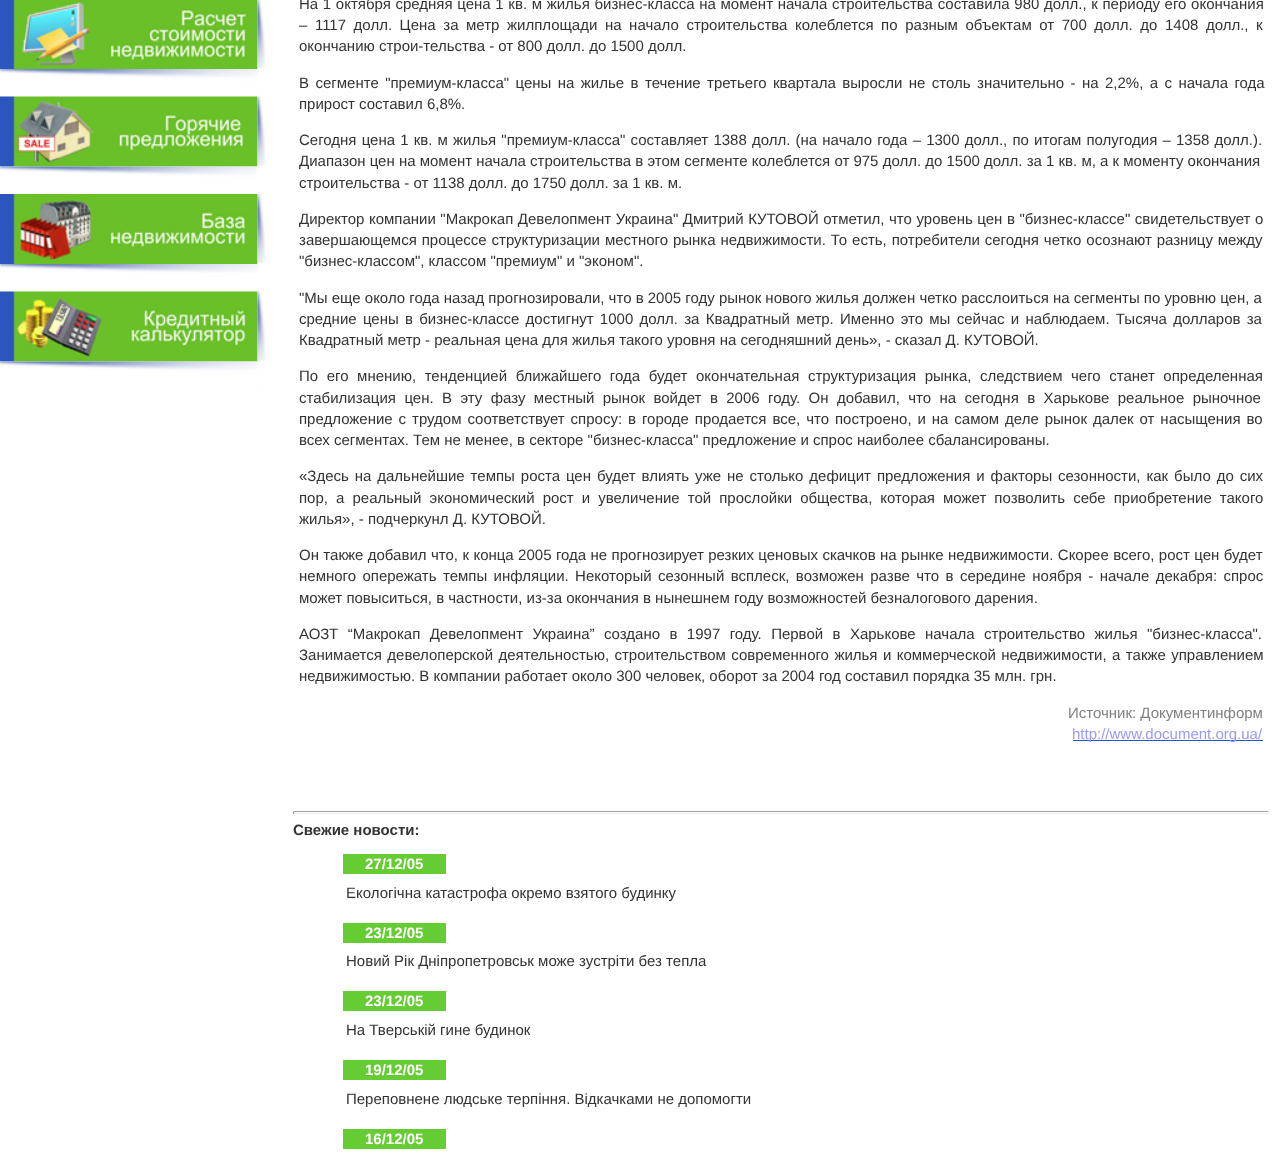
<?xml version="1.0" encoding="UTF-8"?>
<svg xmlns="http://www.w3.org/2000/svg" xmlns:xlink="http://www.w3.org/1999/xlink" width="1281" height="1163">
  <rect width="100%" height="100%" fill="#ffffff" />
  <image x="0" y="0" width="258" height="69" xlink:href="image1.png" />
  <image x="257" y="0" width="9" height="69" xlink:href="image2.png" />
  <image x="0" y="69" width="259" height="28" xlink:href="image3.png" />
  <image x="0" y="96" width="258" height="71" xlink:href="image4.png" />
  <image x="257" y="96" width="9" height="71" xlink:href="image5.png" />
  <image x="0" y="166" width="260" height="28" xlink:href="image6.png" />
  <image x="0" y="194" width="258" height="70" xlink:href="image7.png" />
  <image x="257" y="194" width="9" height="70" xlink:href="image8.png" />
  <image x="0" y="264" width="259" height="28" xlink:href="image3.png" />
  <image x="0" y="291" width="258" height="71" xlink:href="image9.png" />
  <image x="257" y="291" width="9" height="71" xlink:href="image5.png" />
  <image x="0" y="361" width="260" height="28" xlink:href="image10.png" />
  <rect x="1073" y="740" width="190" height="1" fill="#2955bd" />
  <rect x="293" y="811" width="976" height="1" fill="#9f9f9f" />
  <rect x="1268" y="811" width="1" height="3" fill="#eeeeee" />
  <rect x="293" y="813" width="976" height="1" fill="#eeeeee" />
  <rect x="293" y="811" width="1" height="3" fill="#9f9f9f" />
  <rect x="343" y="854" width="103" height="20" fill="#66cc33" />
  <rect x="343" y="923" width="103" height="20" fill="#66cc33" />
  <rect x="343" y="991" width="103" height="20" fill="#66cc33" />
  <rect x="343" y="1060" width="103" height="20" fill="#66cc33" />
  <rect x="343" y="1129" width="103" height="20" fill="#66cc33" />
  <text x="299" y="9" word-spacing="0.5" style="font-family: Liberation Sans; font-size: 15px; fill: #333333">На 1 октября средняя цена 1 кв. м жилья бизнес-класса на момент начала строительства составила 980 долл., к периоду его окончания</text>
  <text x="299" y="30" word-spacing="3.4" style="font-family: Liberation Sans; font-size: 15px; fill: #333333">– 1117 долл. Цена за метр жилплощади на начало строительства колеблется по разным объектам от 700 долл. до 1408 долл., к</text>
  <text x="299" y="51" style="font-family: Liberation Sans; font-size: 15px; fill: #333333">окончанию строи-тельства - от 800 долл. до 1500 долл.</text>
  <text x="299" y="88" word-spacing="2.25" style="font-family: Liberation Sans; font-size: 15px; fill: #333333">В сегменте "премиум-класса" цены на жилье в течение третьего квартала выросли не столь значительно - на 2,2%, а с начала года</text>
  <text x="299" y="109" style="font-family: Liberation Sans; font-size: 15px; fill: #333333">прирост составил 6,8%.</text>
  <text x="299" y="145" word-spacing="1" style="font-family: Liberation Sans; font-size: 15px; fill: #333333">Сегодня цена 1 кв. м жилья "премиум-класса" составляет 1388 долл. (на начало года – 1300 долл., по итогам полугодия – 1358 долл.).</text>
  <text x="299" y="166" style="font-family: Liberation Sans; font-size: 15px; fill: #333333">Диапазон цен на момент начала строительства в этом сегменте колеблется от 975 долл. до 1500 долл. за 1 кв. м, а к моменту окончания</text>
  <text x="299" y="188" style="font-family: Liberation Sans; font-size: 15px; fill: #333333">строительства - от 1138 долл. до 1750 долл. за 1 кв. м.</text>
  <text x="299" y="224" word-spacing="0.4" style="font-family: Liberation Sans; font-size: 15px; fill: #333333">Директор компании "Макрокап Девелопмент Украина" Дмитрий КУТОВОЙ отметил, что уровень цен в "бизнес-классе" свидетельствует о</text>
  <text x="299" y="245" word-spacing="0.75" style="font-family: Liberation Sans; font-size: 15px; fill: #333333">завершающемся процессе структуризации местного рынка недвижимости. То есть, потребители сегодня четко осознают разницу между</text>
  <text x="299" y="266" style="font-family: Liberation Sans; font-size: 15px; fill: #333333">"бизнес-классом", классом "премиум" и "эконом".</text>
  <text x="299" y="303" style="font-family: Liberation Sans; font-size: 15px; fill: #333333">"Мы еще около года назад прогнозировали, что в 2005 году рынок нового жилья должен четко расслоиться на сегменты по уровню цен, а</text>
  <text x="299" y="324" word-spacing="2.1" style="font-family: Liberation Sans; font-size: 15px; fill: #333333">средние цены в бизнес-классе достигнут 1000 долл. за Квадратный метр. Именно это мы сейчас и наблюдаем. Тысяча долларов за</text>
  <text x="299" y="345" style="font-family: Liberation Sans; font-size: 15px; fill: #333333">Квадратный метр - реальная цена для жилья такого уровня на сегодняшний день», - сказал Д. КУТОВОЙ.</text>
  <text x="299" y="381" word-spacing="4.4" style="font-family: Liberation Sans; font-size: 15px; fill: #333333">По его мнению, тенденцией ближайшего года будет окончательная структуризация рынка, следствием чего станет определенная</text>
  <text x="299" y="403" word-spacing="4.25" style="font-family: Liberation Sans; font-size: 15px; fill: #333333">стабилизация цен. В эту фазу местный рынок войдет в 2006 году. Он добавил, что на сегодня в Харькове реальное рыночное</text>
  <text x="299" y="424" word-spacing="1.75" style="font-family: Liberation Sans; font-size: 15px; fill: #333333">предложение с трудом соответствует спросу: в городе продается все, что построено, и на самом деле рынок далек от насыщения во</text>
  <text x="299" y="445" style="font-family: Liberation Sans; font-size: 15px; fill: #333333">всех сегментах. Тем не менее, в секторе "бизнес-класса" предложение и спрос наиболее сбалансированы.</text>
  <text x="299" y="481" word-spacing="1.75" style="font-family: Liberation Sans; font-size: 15px; fill: #333333">«Здесь на дальнейшие темпы роста цен будет влиять уже не столько дефицит предложения и факторы сезонности, как было до сих</text>
  <text x="299" y="503" word-spacing="3.9" style="font-family: Liberation Sans; font-size: 15px; fill: #333333">пор, а реальный экономический рост и увеличение той прослойки общества, которая может позволить себе приобретение такого</text>
  <text x="299" y="524" style="font-family: Liberation Sans; font-size: 15px; fill: #333333">жилья», - подчеркунл Д. КУТОВОЙ.</text>
  <text x="299" y="560" word-spacing="0.25" style="font-family: Liberation Sans; font-size: 15px; fill: #333333">Он также добавил что, к конца 2005 года не прогнозирует резких ценовых скачков на рынке недвижимости. Скорее всего, рост цен будет</text>
  <text x="299" y="581" word-spacing="2.25" style="font-family: Liberation Sans; font-size: 15px; fill: #333333">немного опережать темпы инфляции. Некоторый сезонный всплеск, возможен разве что в середине ноября - начале декабря: спрос</text>
  <text x="299" y="603" style="font-family: Liberation Sans; font-size: 15px; fill: #333333">может повыситься, в частности, из-за окончания в нынешнем году возможностей безналогового дарения.</text>
  <text x="299" y="639" word-spacing="5.25" style="font-family: Liberation Sans; font-size: 15px; fill: #333333">АОЗТ “Макрокап Девелопмент Украина” создано в 1997 году. Первой в Харькове начала строительство жилья "бизнес-класса".</text>
  <text x="299" y="660" word-spacing="1.25" style="font-family: Liberation Sans; font-size: 15px; fill: #333333">Занимается девелоперской деятельностью, строительством современного жилья и коммерческой недвижимости, а также управлением</text>
  <text x="299" y="681" style="font-family: Liberation Sans; font-size: 15px; fill: #333333">недвижимостью. В компании работает около 300 человек, оборот за 2004 год составил порядка 35 млн. грн.</text>
  <text x="1068" y="718" style="font-family: Liberation Sans; font-size: 15px; fill: #808080">Источник: Документинформ</text>
  <text x="1072" y="739" style="font-family: Liberation Sans; font-size: 15px; fill: #9999ff">http://www.document.org.ua/</text>
  <text x="293" y="835" style="font-family: Liberation Sans; font-size: 15px; font-weight: bold; fill: #333333">Свежие новости:</text>
  <text x="365" y="869" style="font-family: Liberation Sans; font-size: 15px; font-weight: bold; fill: #ffffff">27/12/05</text>
  <text x="346" y="898" style="font-family: Liberation Sans; font-size: 15px; fill: #333333">Екологічна катастрофа окремо взятого будинку</text>
  <text x="365" y="938" style="font-family: Liberation Sans; font-size: 15px; font-weight: bold; fill: #ffffff">23/12/05</text>
  <text x="346" y="966" style="font-family: Liberation Sans; font-size: 15px; fill: #333333">Новий Рік Дніпропетровськ може зустріти без тепла</text>
  <text x="365" y="1006" style="font-family: Liberation Sans; font-size: 15px; font-weight: bold; fill: #ffffff">23/12/05</text>
  <text x="346" y="1035" style="font-family: Liberation Sans; font-size: 15px; fill: #333333">На Тверській гине будинок</text>
  <text x="365" y="1075" style="font-family: Liberation Sans; font-size: 15px; font-weight: bold; fill: #ffffff">19/12/05</text>
  <text x="346" y="1104" style="font-family: Liberation Sans; font-size: 15px; fill: #333333">Переповнене людське терпіння. Відкачками не допомогти</text>
  <text x="365" y="1144" style="font-family: Liberation Sans; font-size: 15px; font-weight: bold; fill: #ffffff">16/12/05</text>
</svg>
